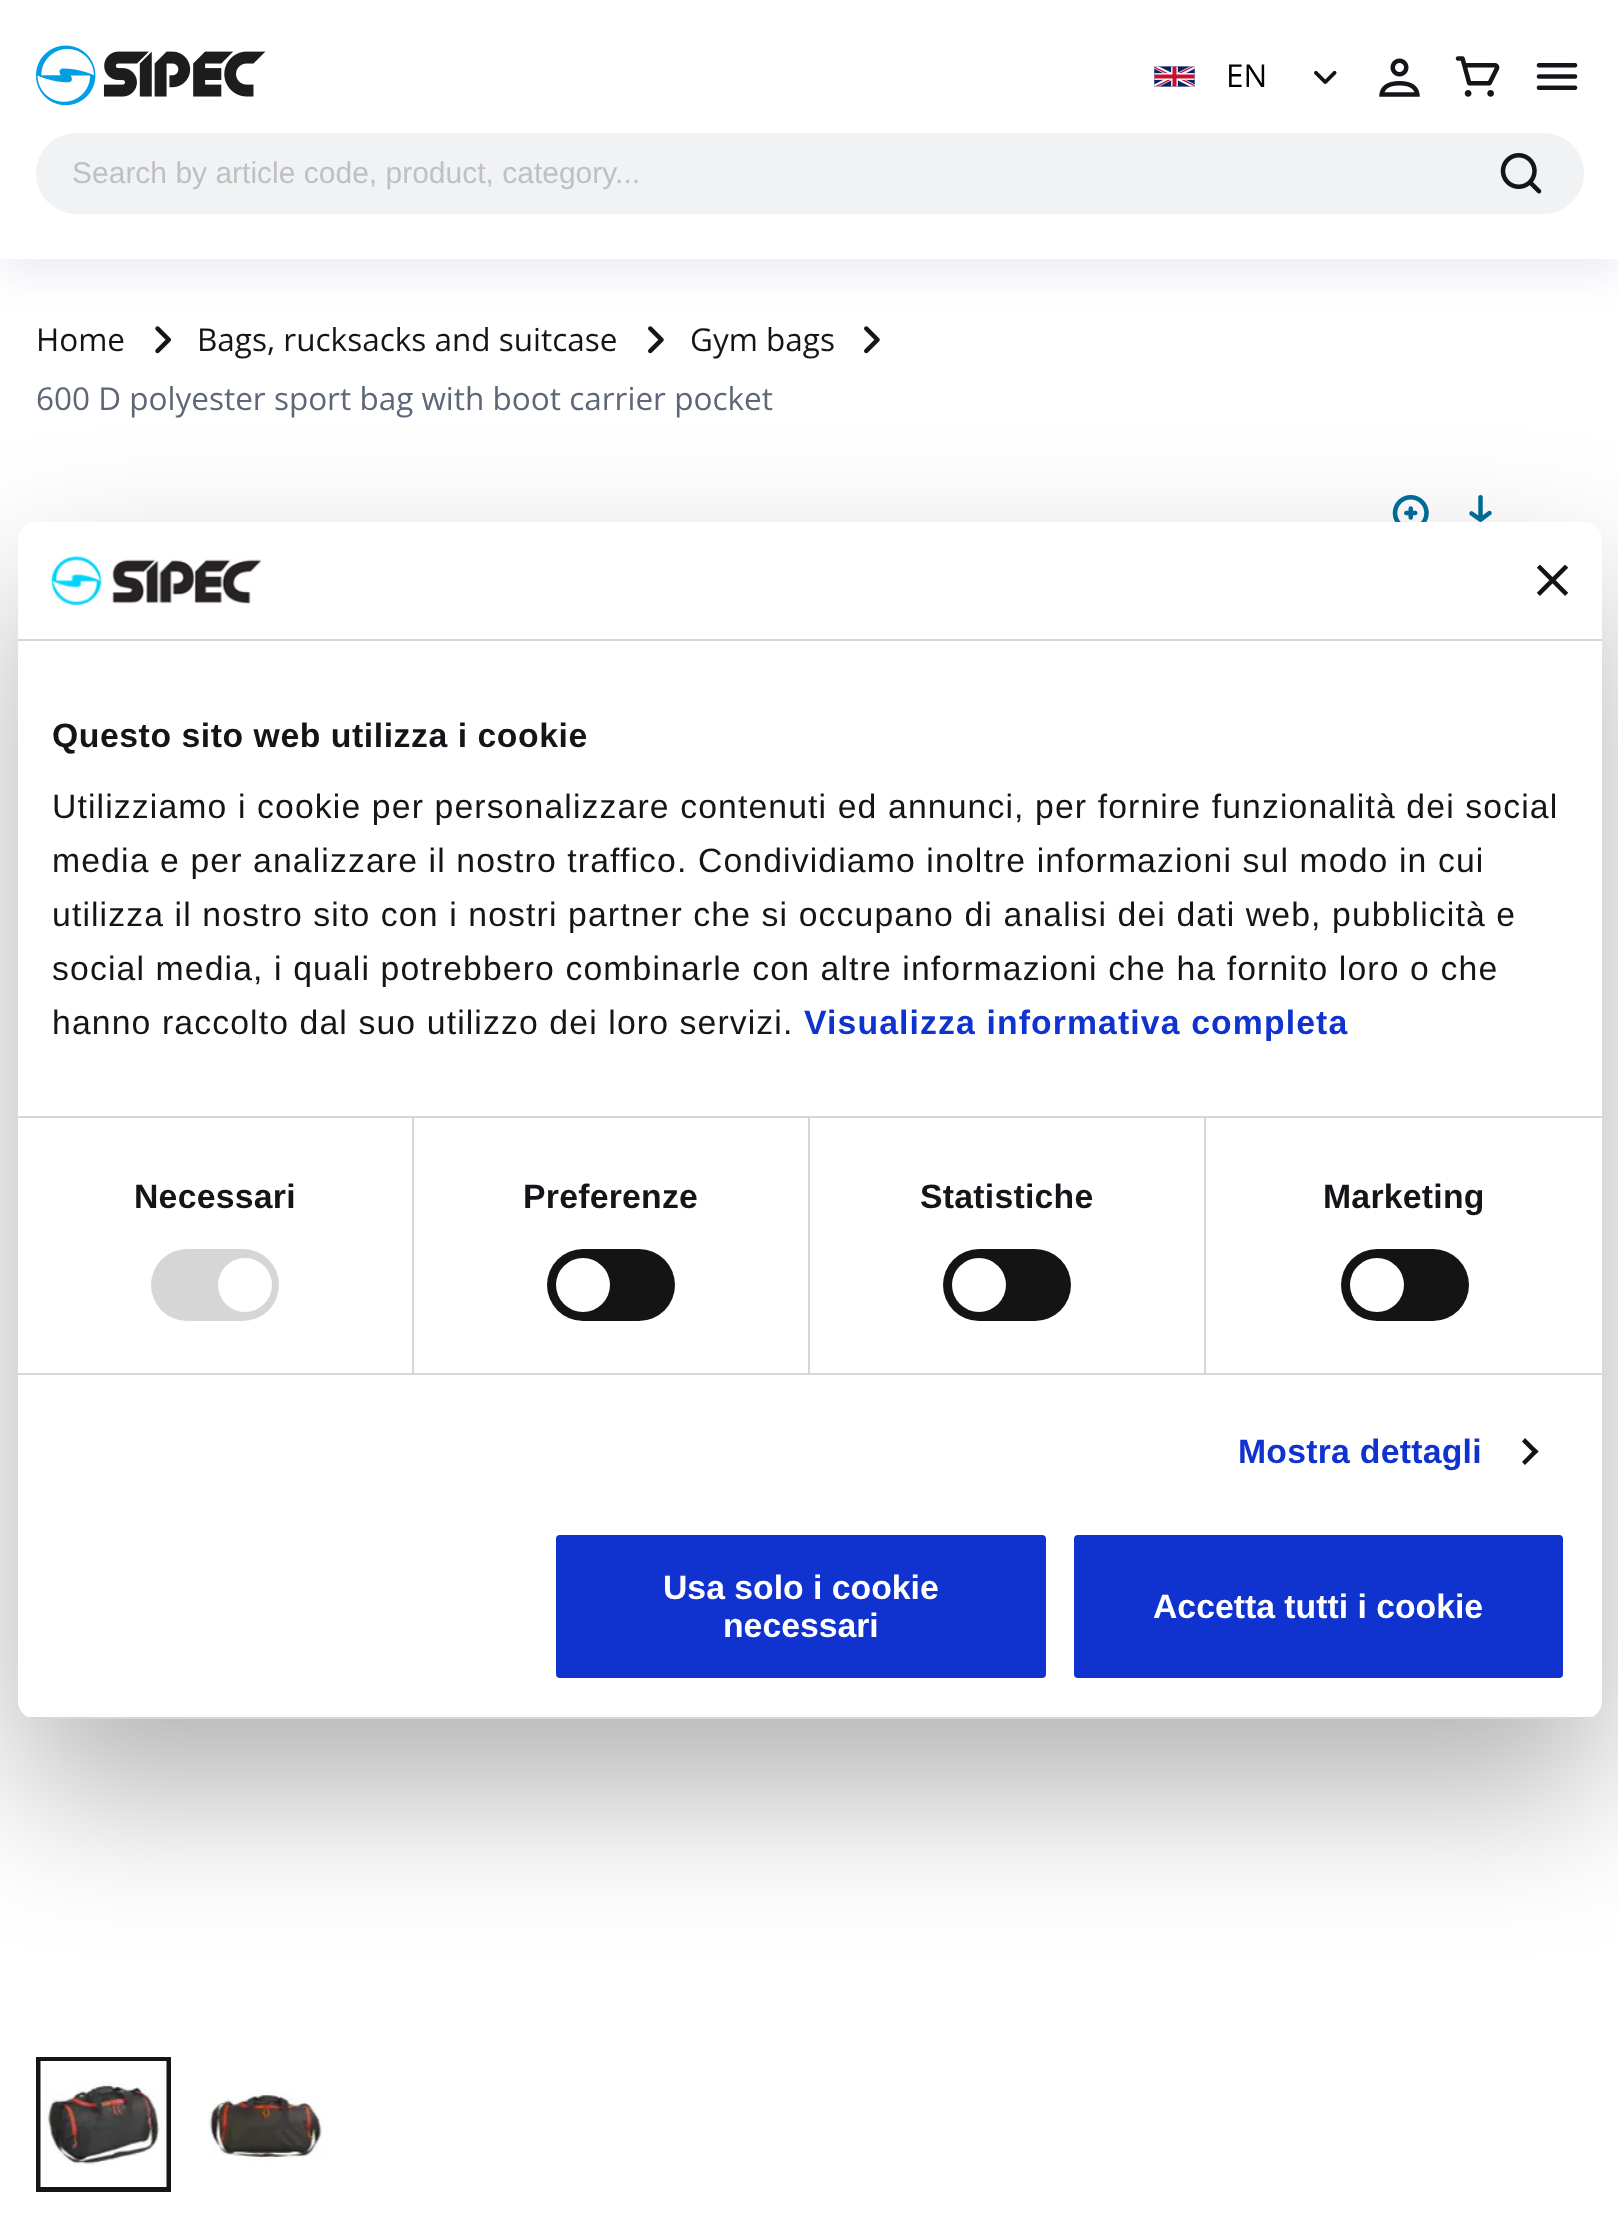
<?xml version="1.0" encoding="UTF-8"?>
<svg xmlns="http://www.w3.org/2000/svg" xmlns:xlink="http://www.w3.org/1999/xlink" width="1618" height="2238">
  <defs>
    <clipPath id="clip1"><rect x="18" y="522" width="1584" height="1197" rx="18" /></clipPath>
  </defs>
  <rect width="100%" height="100%" fill="#ffffff" />
  <image x="155" y="326" width="16" height="28" xlink:href="image8.png" />
  <image x="648" y="326" width="16" height="28" xlink:href="image9.png" />
  <image x="864" y="326" width="16" height="28" xlink:href="image9.png" />
  <rect y="18" width="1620" height="259" fill="#183273" fill-opacity="0.08" filter="blur(18px)" />
  <rect width="1618" height="259" fill="#ffffff" />
  <image x="36" y="45" width="230" height="61" xlink:href="image1.png" />
  <image x="1154" y="66" width="41" height="21" xlink:href="image2.png" />
  <image x="1314" y="70" width="23" height="14" xlink:href="image3.png" />
  <image x="1379" y="58" width="41" height="39" xlink:href="image4.png" />
  <image x="1455" y="56" width="45" height="41" xlink:href="image5.png" />
  <image x="1536" y="63" width="42" height="27" xlink:href="image6.png" />
  <rect x="36" y="133" width="1548" height="81" rx="40.5" fill="#f1f2f4" />
  <image x="1500" y="153" width="42" height="41" xlink:href="image7.png" />
  <image x="1392" y="495" width="37" height="27" xlink:href="image10.png" />
  <image x="1469" y="495" width="23" height="27" xlink:href="image11.png" />
  <rect x="38.5" y="2059.5" width="130" height="130" fill="none" stroke="#131518" stroke-width="5" />
  <image x="40" y="2061" width="127" height="126" xlink:href="image12.png" />
  <image x="208" y="2092" width="121" height="69" xlink:href="image13.png" />
  <rect x="18" y="594" width="1584" height="1197" rx="18" fill="#000000" fill-opacity="0.3" filter="blur(76.5px)" />
  <rect x="18" y="522" width="1584" height="1197" rx="18" fill="#ffffff" />
  <rect x="18" y="639" width="1584" height="2" fill="#d6d6d6" />
  <image x="51" y="556" width="210" height="49" xlink:href="image14.png" />
  <image x="1537" y="565" width="31" height="31" xlink:href="image15.png" />
  <rect x="18" y="1116" width="1584" height="2" fill="#d6d6d6" />
  <rect x="18" y="1373" width="1584" height="2" fill="#d6d6d6" />
  <rect x="412" y="1118" width="2" height="255" fill="#d6d6d6" />
  <rect x="151" y="1249" width="128" height="72" rx="36" fill="#d6d6d6" />
  <circle cx="245" cy="1285" r="27" fill="#ffffff" />
  <rect x="808" y="1118" width="2" height="255" fill="#d6d6d6" />
  <rect x="547" y="1249" width="128" height="72" rx="36" fill="#141414" />
  <circle cx="583" cy="1285" r="27" fill="#ffffff" />
  <rect x="1204" y="1118" width="2" height="255" fill="#d6d6d6" />
  <rect x="943" y="1249" width="128" height="72" rx="36" fill="#141414" />
  <circle cx="979" cy="1285" r="27" fill="#ffffff" />
  <rect x="1341" y="1249" width="128" height="72" rx="36" fill="#141414" />
  <circle cx="1377" cy="1285" r="27" fill="#ffffff" />
  <path d="M 1525 1438 l 13.5 13.5 l -3.5 3 l -13 -13 z" fill="#141414" />
  <path d="M 1535 1448.5 l 3.5 3 l -13.5 13.5 l -3 -3 z" fill="#141414" />
  <g clip-path="url(#clip1)">
    <rect x="28" y="1717" width="1564" height="2" fill="#d6d6d6" />
  </g>
  <rect x="553.5" y="1532.5" width="495" height="148" rx="6.5" fill="#1032cf" stroke="#ffffff" stroke-width="5" />
  <rect x="1071.5" y="1532.5" width="494" height="148" rx="6.5" fill="#1032cf" stroke="#ffffff" stroke-width="5" />
  <text x="1226" y="87" style="font-family: Open Sans; font-size: 31.5px; fill: #000000">EN</text>
  <text x="72" y="183" style="font-family: Liberation Sans; font-size: 30px; fill: #bfc0c1">Search by article code, product, category...</text>
  <text x="36" y="351" style="font-family: Open Sans; font-size: 31.5px; fill: #131518">Home</text>
  <text x="197" y="351" style="font-family: Open Sans; font-size: 31.5px; fill: #131518">Bags, rucksacks and suitcase</text>
  <text x="690" y="351" style="font-family: Open Sans; font-size: 31.5px; fill: #131518">Gym bags</text>
  <text x="36" y="410" style="font-family: Open Sans; font-size: 31.5px; fill: #5e6777">600 D polyester sport bag with boot carrier pocket</text>
  <text x="52" y="747" style="font-family: Liberation Sans; font-size: 33.75px; font-weight: bold; letter-spacing: 0.55px; fill: #131518">Questo sito web utilizza i cookie</text>
  <text x="52" y="818" style="font-family: Liberation Sans; font-size: 33.75px; letter-spacing: 1.12px; fill: #131518">Utilizziamo i cookie per personalizzare contenuti ed annunci, per fornire funzionalità dei social</text>
  <text x="52" y="872" style="font-family: Liberation Sans; font-size: 33.75px; letter-spacing: 1.12px; fill: #131518">media e per analizzare il nostro traffico. Condividiamo inoltre informazioni sul modo in cui</text>
  <text x="52" y="926" style="font-family: Liberation Sans; font-size: 33.75px; letter-spacing: 1.12px; fill: #131518">utilizza il nostro sito con i nostri partner che si occupano di analisi dei dati web, pubblicità e</text>
  <text x="52" y="980" style="font-family: Liberation Sans; font-size: 33.75px; letter-spacing: 1.12px; fill: #131518">social media, i quali potrebbero combinarle con altre informazioni che ha fornito loro o che</text>
  <text x="52" y="1034" style="font-family: Liberation Sans; font-size: 33.75px; letter-spacing: 1.12px; fill: #131518">hanno raccolto dal suo utilizzo dei loro servizi.</text>
  <text x="804" y="1034" style="font-family: Liberation Sans; font-size: 33.75px; font-weight: bold; letter-spacing: 1.12px; fill: #1032cf">Visualizza informativa completa</text>
  <text x="134" y="1208" style="font-family: Liberation Sans; font-size: 33.75px; font-weight: bold; letter-spacing: 0.25px; fill: #131518">Necessari</text>
  <text x="523" y="1208" style="font-family: Liberation Sans; font-size: 33.75px; font-weight: bold; letter-spacing: 0.25px; fill: #131518">Preferenze</text>
  <text x="920" y="1208" style="font-family: Liberation Sans; font-size: 33.75px; font-weight: bold; letter-spacing: 0.25px; fill: #131518">Statistiche</text>
  <text x="1323" y="1208" style="font-family: Liberation Sans; font-size: 33.75px; font-weight: bold; letter-spacing: 0.25px; fill: #131518">Marketing</text>
  <text x="1238" y="1463" style="font-family: Liberation Sans; font-size: 33.75px; font-weight: bold; letter-spacing: 0.25px; fill: #1032cf">Mostra dettagli</text>
  <text x="663" y="1599" style="font-family: Liberation Sans; font-size: 33.75px; font-weight: bold; fill: #ffffff">Usa solo i cookie</text>
  <text x="723" y="1637" style="font-family: Liberation Sans; font-size: 33.75px; font-weight: bold; fill: #ffffff">necessari</text>
  <text x="1153" y="1618" style="font-family: Liberation Sans; font-size: 33.75px; font-weight: bold; fill: #ffffff">Accetta tutti i cookie</text>
</svg>
